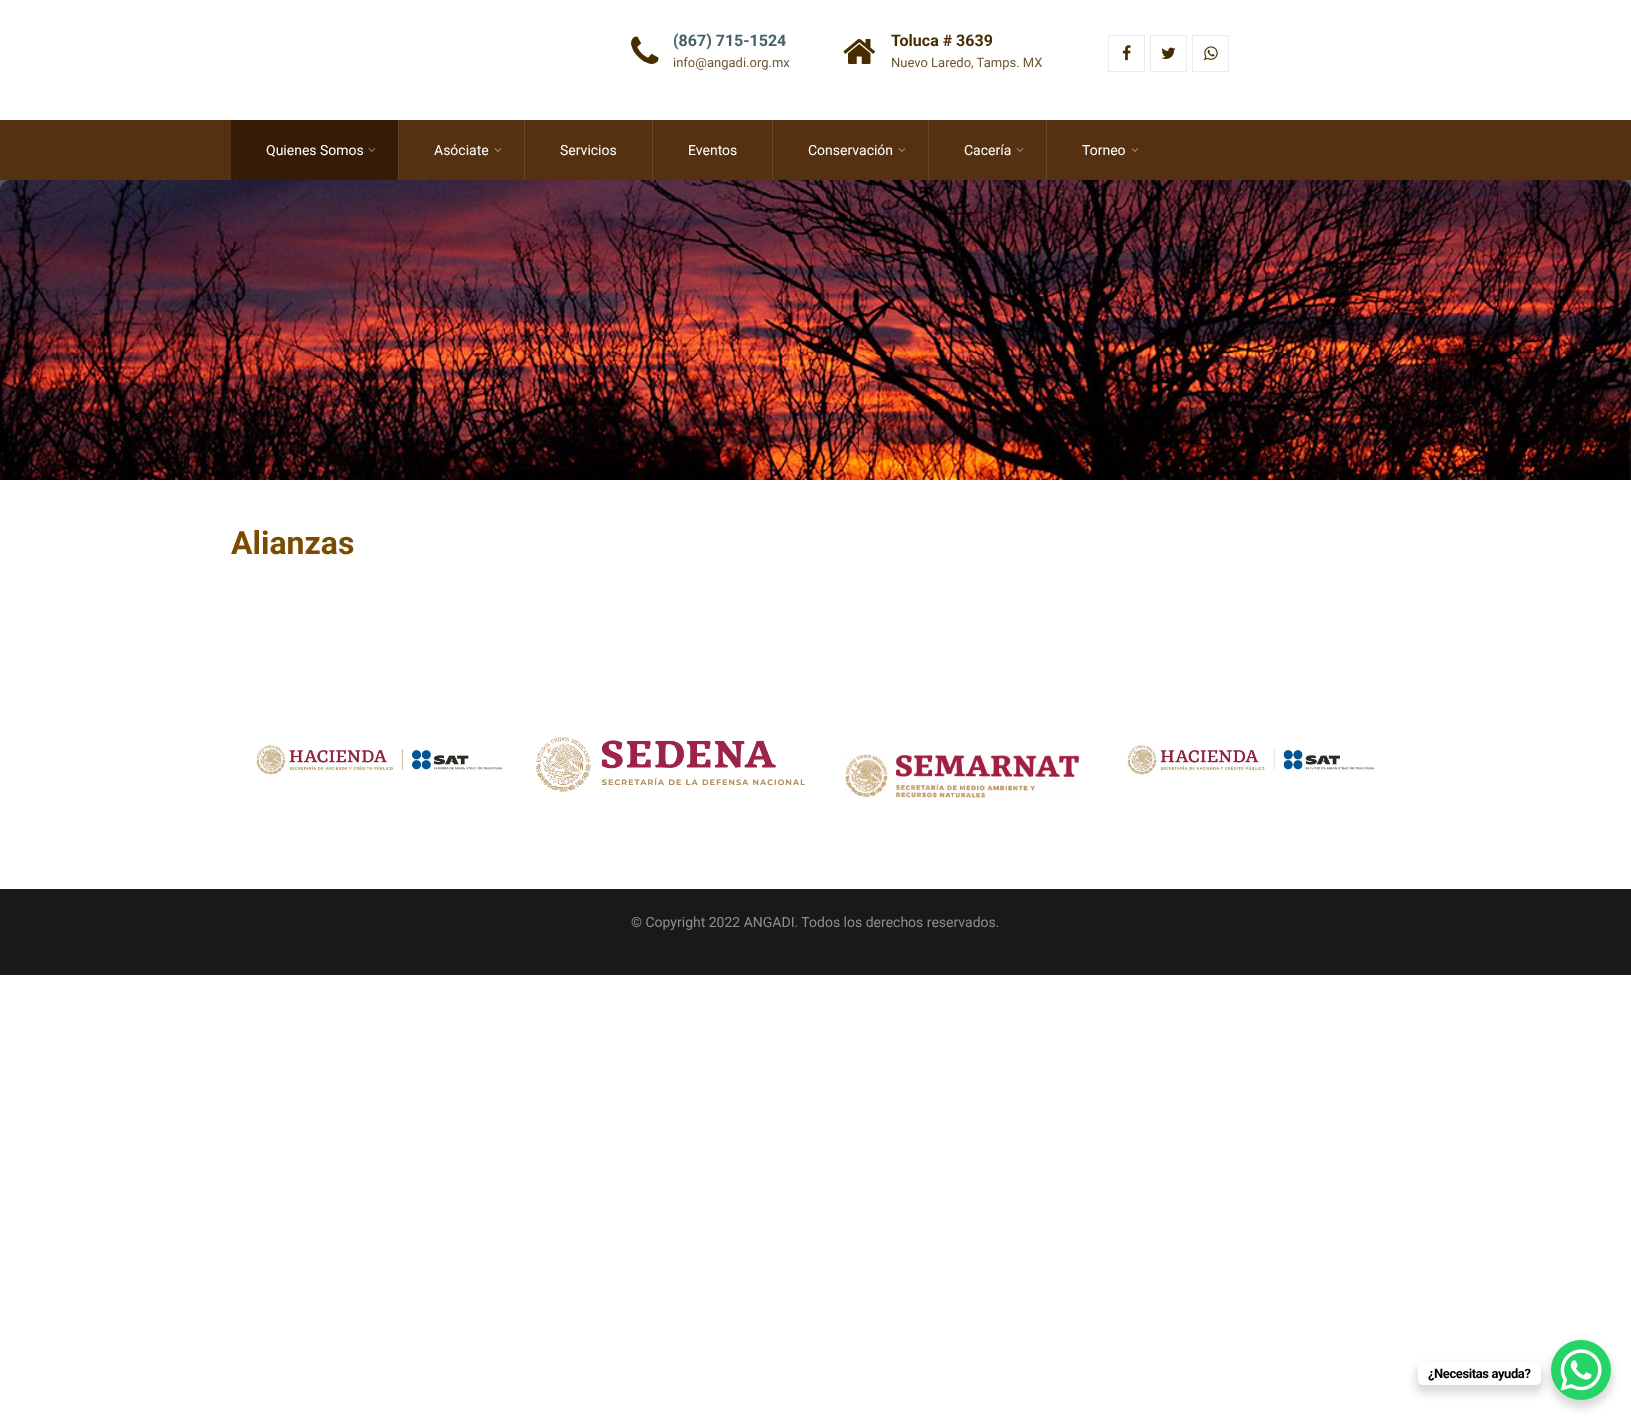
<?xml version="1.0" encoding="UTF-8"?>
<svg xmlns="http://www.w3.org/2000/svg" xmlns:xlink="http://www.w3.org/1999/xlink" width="1631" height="1420">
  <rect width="100%" height="100%" fill="#ffffff" />
  <image x="631" y="36" width="28" height="28" xlink:href="image1.png" />
  <image x="843" y="38" width="32" height="26" xlink:href="image2.png" />
  <rect x="1108.5" y="35.5" width="36" height="36" fill="none" stroke="#ecebeb" />
  <image x="1122" y="45" width="9" height="16" xlink:href="image3.png" />
  <rect x="1150.5" y="35.5" width="36" height="36" fill="none" stroke="#ecebeb" />
  <image x="1161" y="47" width="15" height="12" xlink:href="image4.png" />
  <rect x="1192.5" y="35.5" width="36" height="36" fill="none" stroke="#ecebeb" />
  <image x="1204" y="46" width="14" height="15" xlink:href="image5.png" />
  <rect y="120" width="1631" height="60" fill="#563111" />
  <rect x="398" y="120" width="1" height="60" fill="#674629" />
  <rect x="231" y="120" width="167" height="60" fill="#361b07" />
  <image x="368" y="148" width="8" height="4" xlink:href="image6.png" />
  <rect x="524" y="120" width="1" height="60" fill="#674629" />
  <image x="494" y="148" width="8" height="4" xlink:href="image7.png" />
  <rect x="652" y="120" width="1" height="60" fill="#674629" />
  <rect x="772" y="120" width="1" height="60" fill="#674629" />
  <rect x="928" y="120" width="1" height="60" fill="#674629" />
  <image x="898" y="148" width="8" height="4" xlink:href="image7.png" />
  <rect x="1046" y="120" width="1" height="60" fill="#674629" />
  <image x="1016" y="148" width="8" height="4" xlink:href="image7.png" />
  <image x="1131" y="148" width="8" height="4" xlink:href="image7.png" />
  <rect y="180" width="1631" height="10" fill="#545556" />
  <image x="0" y="180" width="1631" height="300" xlink:href="image8.png" />
  <image x="255" y="744" width="248" height="32" xlink:href="image9.png" />
  <image x="536" y="737" width="269" height="55" xlink:href="image10.png" />
  <image x="845" y="754" width="235" height="44" xlink:href="image11.png" />
  <image x="1126" y="744" width="249" height="32" xlink:href="image12.png" />
  <rect y="889" width="1631" height="86" fill="#191919" />
  <rect x="1549" y="1344" width="64" height="64" rx="32" fill="#000000" fill-opacity="0.15" filter="blur(4px)" />
  <circle cx="1581" cy="1370" r="30" fill="#25d366" />
  <rect x="1416" y="1366" width="127" height="27" rx="7" fill="#000000" fill-opacity="0.15" filter="blur(4px)" />
  <rect x="1418" y="1362" width="123" height="23" rx="5" fill="#ffffff" />
  <image x="1560" y="1349" width="42" height="42" xlink:href="image13.png" />
  <text x="673" y="46" style="font-family: Roboto; font-size: 16px; font-weight: bold; fill: #476166">(867) 715-1524</text>
  <text x="673" y="67" style="font-family: Roboto; font-size: 13px; fill: #6d5735">info@angadi.org.mx</text>
  <text x="891" y="46" style="font-family: Roboto; font-size: 16px; font-weight: bold; fill: #492d02">Toluca # 3639</text>
  <text x="891" y="67" style="font-family: Roboto; font-size: 13px; fill: #6d5735">Nuevo Laredo, Tamps. MX</text>
  <text x="266" y="155" style="font-family: Roboto; font-size: 14px; fill: #ffffff">Quienes Somos</text>
  <text x="434" y="155" style="font-family: Roboto; font-size: 14px; fill: #ffffff">Asóciate</text>
  <text x="560" y="155" style="font-family: Roboto; font-size: 14px; fill: #ffffff">Servicios</text>
  <text x="688" y="155" style="font-family: Roboto; font-size: 14px; fill: #ffffff">Eventos</text>
  <text x="808" y="155" style="font-family: Roboto; font-size: 14px; fill: #ffffff">Conservación</text>
  <text x="964" y="155" style="font-family: Roboto; font-size: 14px; fill: #ffffff">Cacería</text>
  <text x="1082" y="155" style="font-family: Roboto; font-size: 14px; fill: #ffffff">Torneo</text>
  <text x="231" y="554" style="font-family: Roboto; font-size: 32px; font-weight: bold; fill: #7a4b01">Alianzas</text>
  <text x="631" y="927" style="font-family: Roboto; font-size: 14px; fill: #8d8e8e">© Copyright 2022 ANGADI. Todos los derechos reservados.</text>
  <text x="1428" y="1378" style="font-family: Roboto; font-size: 13px; font-weight: bold; letter-spacing: -0.4px; fill: #000000">¿Necesitas ayuda?</text>
</svg>
